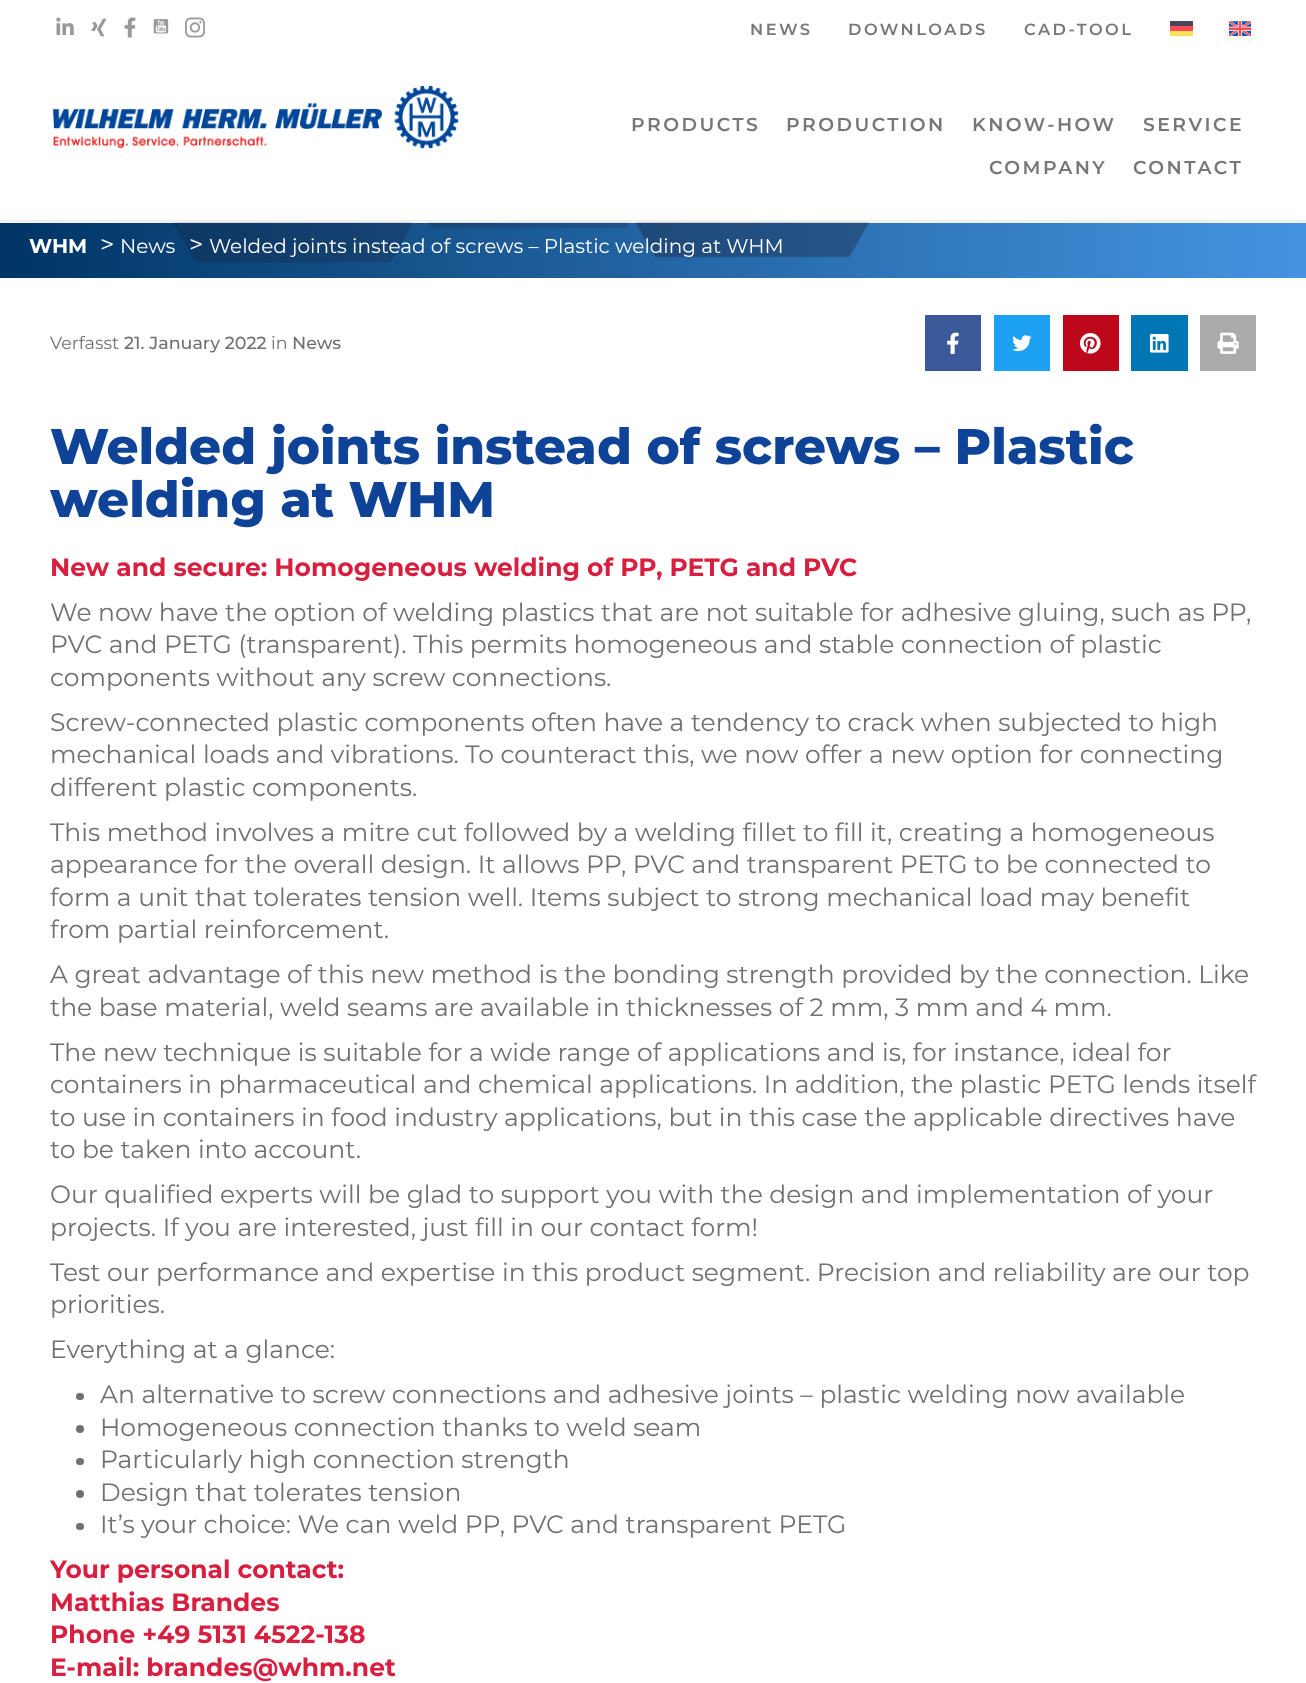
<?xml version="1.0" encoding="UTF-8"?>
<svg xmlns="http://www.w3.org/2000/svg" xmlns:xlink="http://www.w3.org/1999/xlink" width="1306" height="1683">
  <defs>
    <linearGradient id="g1" gradientUnits="userSpaceOnUse" x1="0" y1="250" x2="1306" y2="250"><stop offset="0" stop-color="#003565" /><stop offset="1" stop-color="#4594e1" /></linearGradient>
  </defs>
  <rect width="100%" height="100%" fill="#f2f2f2" />
  <rect width="1306" height="220" fill="#ffffff" />
  <image x="56" y="17" width="18" height="18" xlink:href="image1.png" />
  <image x="91" y="18" width="16" height="19" xlink:href="image2.png" />
  <image x="124" y="17" width="12" height="21" xlink:href="image3.png" />
  <image x="153" y="19" width="16" height="15" xlink:href="image4.png" />
  <image x="185" y="17" width="20" height="21" xlink:href="image5.png" />
  <rect x="1170" y="26" width="23" height="5" fill="#ff4b55" />
  <rect x="1170" y="31" width="23" height="5" fill="#ffe15a" />
  <rect x="1170" y="21" width="23" height="5" fill="#464655" />
  <image x="1229" y="21" width="22" height="15" xlink:href="image6.png" />
  <rect y="220" width="1306" height="1" fill="#ededed" />
  <image x="52" y="85" width="407" height="64" xlink:href="image7.png" />
  <rect y="223" width="1306" height="55" fill="url(#g1)" />
  <image x="173" y="222" width="696" height="41" xlink:href="image8.png" />
  <rect y="278" width="1306" height="1405" fill="#ffffff" />
  <rect x="925" y="315" width="56" height="56" fill="#3b5998" />
  <image x="947" y="332" width="12" height="22" xlink:href="image9.png" />
  <rect x="994" y="315" width="56" height="56" fill="#1da1f2" />
  <image x="1012" y="335" width="20" height="17" xlink:href="image10.png" />
  <rect x="1063" y="315" width="56" height="56" fill="#bd081c" />
  <image x="1080" y="333" width="21" height="21" xlink:href="image11.png" />
  <rect x="1131" y="315" width="57" height="56" fill="#0077b5" />
  <image x="1150" y="334" width="19" height="19" xlink:href="image12.png" />
  <rect x="1200" y="315" width="56" height="56" fill="#aaaaaa" />
  <image x="1217" y="332" width="22" height="22" xlink:href="image13.png" />
  <rect x="76" y="1393" width="8" height="7" rx="3.5" fill="#707070" />
  <circle cx="80" cy="1429" r="4" fill="#707070" />
  <rect x="76" y="1458" width="8" height="7" rx="3.5" fill="#707070" />
  <circle cx="80" cy="1494" r="4" fill="#707070" />
  <rect x="76" y="1523" width="8" height="7" rx="3.5" fill="#707070" />
  <text x="750" y="35" style="font-family: Montserrat; font-size: 16.25px; font-weight: 600; letter-spacing: 2.5px; fill: #777777">NEWS</text>
  <text x="848" y="35" style="font-family: Montserrat; font-size: 16.25px; font-weight: 600; letter-spacing: 2.5px; fill: #777777">DOWNLOADS</text>
  <text x="1024" y="35" style="font-family: Montserrat; font-size: 16.25px; font-weight: 600; letter-spacing: 2.5px; fill: #777777">CAD-TOOL</text>
  <text x="631" y="131" style="font-family: Montserrat; font-size: 18.75px; font-weight: 600; letter-spacing: 2.5px; fill: #777777">PRODUCTS</text>
  <text x="786" y="131" style="font-family: Montserrat; font-size: 18.75px; font-weight: 600; letter-spacing: 2.5px; fill: #777777">PRODUCTION</text>
  <text x="972" y="131" style="font-family: Montserrat; font-size: 18.75px; font-weight: 600; letter-spacing: 2.5px; fill: #777777">KNOW-HOW</text>
  <text x="1143" y="131" style="font-family: Montserrat; font-size: 18.75px; font-weight: 600; letter-spacing: 2.5px; fill: #777777">SERVICE</text>
  <text x="989" y="174" style="font-family: Montserrat; font-size: 18.75px; font-weight: 600; letter-spacing: 2.5px; fill: #777777">COMPANY</text>
  <text x="1133" y="174" style="font-family: Montserrat; font-size: 18.75px; font-weight: 600; letter-spacing: 2.5px; fill: #777777">CONTACT</text>
  <text x="29" y="253" style="font-family: Montserrat; font-size: 20px; font-weight: bold; fill: #ffffff">WHM</text>
  <text x="100" y="253" style="font-family: Montserrat; font-size: 25px; fill: #ffffff">&gt;</text>
  <text x="120" y="253" style="font-family: Montserrat; font-size: 20px; fill: #ffffff">News</text>
  <text x="189" y="253" style="font-family: Montserrat; font-size: 25px; fill: #ffffff">&gt;</text>
  <text x="209" y="253" style="font-family: Montserrat; font-size: 20px; fill: #ffffff">Welded joints instead of screws – Plastic welding at WHM</text>
  <text x="50" y="349" style="font-family: Montserrat; font-size: 17.5px; fill: #707070">Verfasst</text>
  <text x="124" y="349" style="font-family: Montserrat; font-size: 17.5px; font-weight: 100; fill: #707070">21. January 2022</text>
  <text x="271" y="349" style="font-family: Montserrat; font-size: 17.5px; fill: #707070">in</text>
  <text x="292" y="349" style="font-family: Montserrat; font-size: 17.5px; font-weight: 100; fill: #707070">News</text>
  <text x="50" y="464" style="font-family: Montserrat; font-size: 50px; font-weight: 800; fill: #0f4398">Welded joints instead of screws – Plastic</text>
  <text x="50" y="517" style="font-family: Montserrat; font-size: 50px; font-weight: 800; fill: #0f4398">welding at WHM</text>
  <text x="50" y="576" style="font-family: Montserrat; font-size: 25px; font-weight: bold; fill: #d81f3f">New and secure: Homogeneous welding of PP, PETG and PVC</text>
  <text x="50" y="621" style="font-family: Montserrat; font-size: 25px; fill: #707070">We now have the option of welding plastics that are not suitable for adhesive gluing, such as PP,</text>
  <text x="50" y="653" style="font-family: Montserrat; font-size: 25px; fill: #707070">PVC and PETG (transparent). This permits homogeneous and stable connection of plastic</text>
  <text x="50" y="686" style="font-family: Montserrat; font-size: 25px; fill: #707070">components without any screw connections.</text>
  <text x="50" y="731" style="font-family: Montserrat; font-size: 25px; fill: #707070">Screw-connected plastic components often have a tendency to crack when subjected to high</text>
  <text x="50" y="763" style="font-family: Montserrat; font-size: 25px; fill: #707070">mechanical loads and vibrations. To counteract this, we now offer a new option for connecting</text>
  <text x="50" y="796" style="font-family: Montserrat; font-size: 25px; fill: #707070">different plastic components.</text>
  <text x="50" y="841" style="font-family: Montserrat; font-size: 25px; fill: #707070">This method involves a mitre cut followed by a welding fillet to fill it, creating a homogeneous</text>
  <text x="50" y="873" style="font-family: Montserrat; font-size: 25px; fill: #707070">appearance for the overall design. It allows PP, PVC and transparent PETG to be connected to</text>
  <text x="50" y="906" style="font-family: Montserrat; font-size: 25px; fill: #707070">form a unit that tolerates tension well. Items subject to strong mechanical load may benefit</text>
  <text x="50" y="938" style="font-family: Montserrat; font-size: 25px; fill: #707070">from partial reinforcement.</text>
  <text x="50" y="983" style="font-family: Montserrat; font-size: 25px; fill: #707070">A great advantage of this new method is the bonding strength provided by the connection. Like</text>
  <text x="50" y="1016" style="font-family: Montserrat; font-size: 25px; fill: #707070">the base material, weld seams are available in thicknesses of 2 mm, 3 mm and 4 mm.</text>
  <text x="50" y="1061" style="font-family: Montserrat; font-size: 25px; fill: #707070">The new technique is suitable for a wide range of applications and is, for instance, ideal for</text>
  <text x="50" y="1093" style="font-family: Montserrat; font-size: 25px; fill: #707070">containers in pharmaceutical and chemical applications. In addition, the plastic PETG lends itself</text>
  <text x="50" y="1126" style="font-family: Montserrat; font-size: 25px; fill: #707070">to use in containers in food industry applications, but in this case the applicable directives have</text>
  <text x="50" y="1158" style="font-family: Montserrat; font-size: 25px; fill: #707070">to be taken into account.</text>
  <text x="50" y="1203" style="font-family: Montserrat; font-size: 25px; fill: #707070">Our qualified experts will be glad to support you with the design and implementation of your</text>
  <text x="50" y="1236" style="font-family: Montserrat; font-size: 25px; fill: #707070">projects. If you are interested, just fill in our contact form!</text>
  <text x="50" y="1281" style="font-family: Montserrat; font-size: 25px; fill: #707070">Test our performance and expertise in this product segment. Precision and reliability are our top</text>
  <text x="50" y="1313" style="font-family: Montserrat; font-size: 25px; fill: #707070">priorities.</text>
  <text x="50" y="1358" style="font-family: Montserrat; font-size: 25px; fill: #707070">Everything at a glance:</text>
  <text x="100" y="1403" style="font-family: Montserrat; font-size: 25px; fill: #707070">An alternative to screw connections and adhesive joints – plastic welding now available</text>
  <text x="100" y="1436" style="font-family: Montserrat; font-size: 25px; fill: #707070">Homogeneous connection thanks to weld seam</text>
  <text x="100" y="1468" style="font-family: Montserrat; font-size: 25px; fill: #707070">Particularly high connection strength</text>
  <text x="100" y="1501" style="font-family: Montserrat; font-size: 25px; fill: #707070">Design that tolerates tension</text>
  <text x="100" y="1533" style="font-family: Montserrat; font-size: 25px; fill: #707070">It’s your choice: We can weld PP, PVC and transparent PETG</text>
  <text x="50" y="1578" style="font-family: Montserrat; font-size: 25px; font-weight: bold; fill: #d81f3f">Your personal contact:</text>
  <text x="50" y="1611" style="font-family: Montserrat; font-size: 25px; font-weight: bold; fill: #d81f3f">Matthias Brandes</text>
  <text x="50" y="1643" style="font-family: Montserrat; font-size: 25px; font-weight: bold; fill: #d81f3f">Phone +49 5131 4522-138</text>
  <text x="50" y="1676" style="font-family: Montserrat; font-size: 25px; font-weight: bold; fill: #d81f3f">E-mail: brandes@whm.net</text>
</svg>
